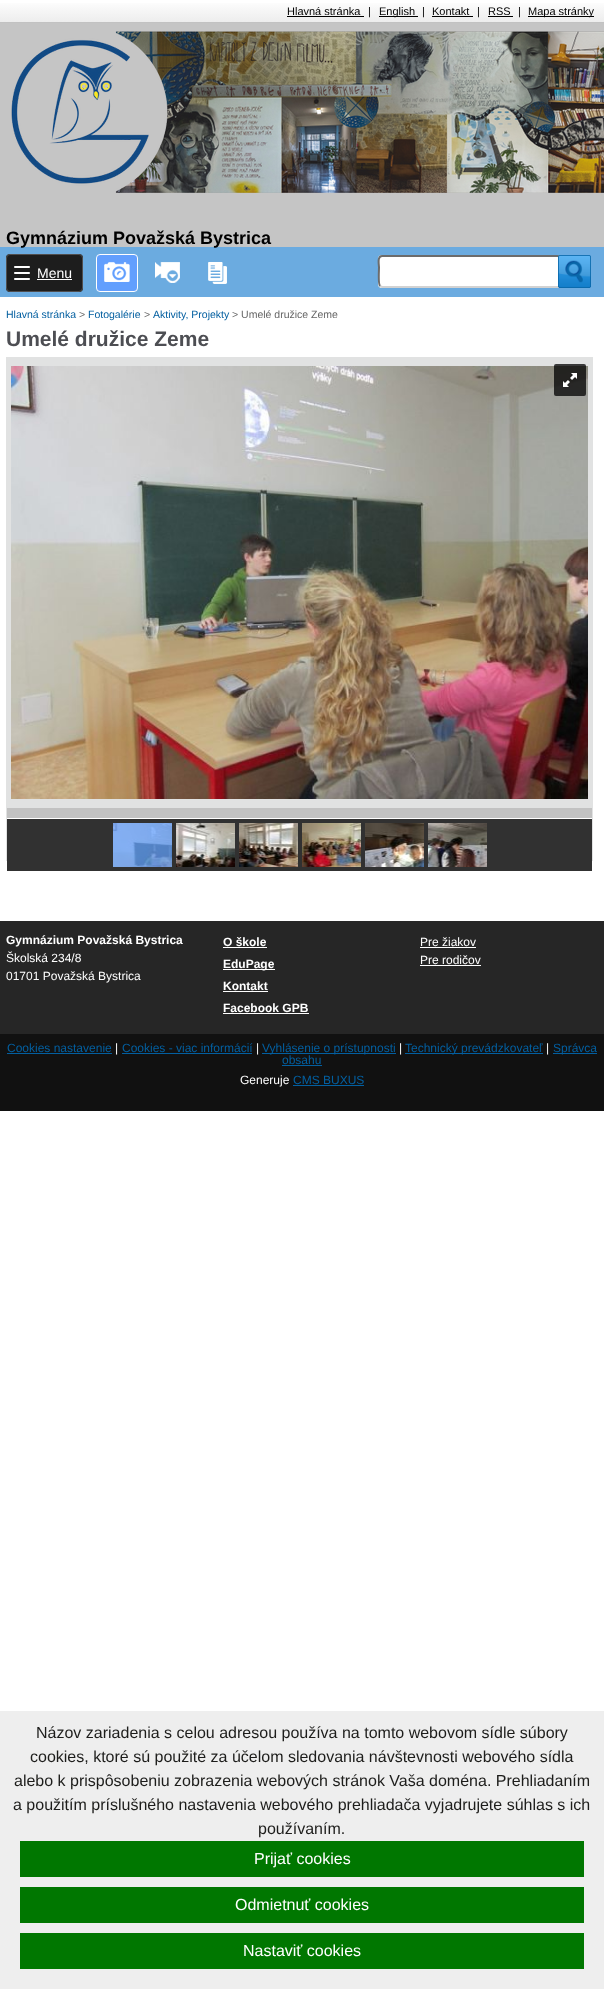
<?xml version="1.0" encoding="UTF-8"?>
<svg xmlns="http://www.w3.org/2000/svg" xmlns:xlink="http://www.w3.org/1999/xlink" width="604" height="1989">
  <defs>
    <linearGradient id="g1" gradientUnits="userSpaceOnUse" x1="302" y1="0" x2="302" y2="22"><stop offset="0" stop-color="#ffffff" /><stop offset="0.47" stop-color="#f6f6f6" /><stop offset="1" stop-color="#ededed" /></linearGradient>
  </defs>
  <rect width="100%" height="100%" fill="#ffffff" />
  <rect y="3" width="604" height="19" fill="url(#g1)" />
  <rect y="22" width="604" height="1" fill="#c2c2c2" />
  <rect x="287" y="16" width="77" height="1" fill="#000000" />
  <rect x="379" y="16" width="39" height="1" fill="#000000" />
  <rect x="432" y="16" width="41" height="1" fill="#000000" />
  <rect x="488" y="16" width="25" height="1" fill="#000000" />
  <rect x="528" y="16" width="66" height="1" fill="#000000" />
  <rect y="23" width="604" height="224" fill="#c5c5c5" />
  <image x="11" y="31" width="593" height="162" xlink:href="image1.png" />
  <rect y="247" width="604" height="50" fill="#6babe0" />
  <rect x="378" y="255" width="184" height="33" rx="4" fill="#ffffff" />
  <path d="M 560 257 c 2 2 1 15.5 1 18.5 c 0 2.5 2 11.5 -3 11.5 h -176 l -2 -1" fill="none" stroke="#d2d2d2" stroke-width="2" />
  <path d="M 380 286 c -2 -2 -1 -15.5 -1 -18.5 c 0 -2.5 -2 -11.5 3 -11.5 h 176 l 2 1" fill="none" stroke="#6c6c6c" stroke-width="2" />
  <image x="558" y="255" width="33" height="33" xlink:href="image2.png" />
  <rect x="6" y="254" width="77" height="38" rx="4" fill="#1d1d1d" />
  <image x="14" y="266" width="16" height="14" xlink:href="image3.png" />
  <rect x="6.5" y="254.5" width="76" height="37" rx="3.5" fill="none" stroke="#504e4e" />
  <rect x="37" y="279" width="35" height="1" fill="#ffffff" />
  <rect x="96.5" y="254.5" width="41" height="37" rx="3.5" fill="#629ffe" stroke="#ffffff" />
  <image x="104" y="262" width="26" height="20" xlink:href="image4.png" />
  <image x="155" y="262" width="25" height="21" xlink:href="image5.png" />
  <image x="208" y="262" width="19" height="22" xlink:href="image6.png" />
  <rect x="6.5" y="357.5" width="586" height="503" fill="none" stroke="#e1e2e2" />
  <rect x="7" y="358" width="585" height="450" fill="#e1e2e2" />
  <image x="11" y="366" width="577" height="433" xlink:href="image8.png" />
  <rect x="554" y="364" width="32" height="32" rx="2" fill="#000000" fill-opacity="0.75" />
  <image x="562" y="373" width="15" height="15" xlink:href="image7.png" />
  <rect x="7" y="808" width="585" height="10" fill="#c2c2c2" />
  <rect x="7" y="819" width="585" height="52" fill="#313131" />
  <rect x="113" y="823" width="59" height="44" fill="#629ffe" />
  <image x="113" y="823" width="59" height="44" xlink:href="image9.png" />
  <image x="176" y="823" width="59" height="44" xlink:href="image10.png" />
  <image x="239" y="823" width="59" height="44" xlink:href="image11.png" />
  <image x="302" y="823" width="59" height="44" xlink:href="image12.png" />
  <image x="365" y="823" width="59" height="44" xlink:href="image13.png" />
  <image x="428" y="823" width="59" height="44" xlink:href="image14.png" />
  <rect y="921" width="604" height="113" fill="#262626" />
  <rect x="223" y="947" width="44" height="1" fill="#ffffff" />
  <rect x="223" y="969" width="52" height="1" fill="#ffffff" />
  <rect x="223" y="991" width="45" height="1" fill="#ffffff" />
  <rect x="223" y="1013" width="86" height="1" fill="#ffffff" />
  <rect x="420" y="947" width="56" height="1" fill="#ffffff" />
  <rect x="420" y="965" width="61" height="1" fill="#ffffff" />
  <rect y="1034" width="604" height="77" fill="#111111" />
  <rect x="7" y="1053" width="105" height="1" fill="#035fa0" />
  <rect x="122" y="1053" width="130" height="1" fill="#035fa0" />
  <rect x="262" y="1053" width="134" height="1" fill="#035fa0" />
  <rect x="405" y="1053" width="138" height="1" fill="#035fa0" />
  <rect x="553" y="1053" width="44" height="1" fill="#035fa0" />
  <rect x="282" y="1065" width="40" height="1" fill="#035fa0" />
  <rect x="293" y="1085" width="71" height="1" fill="#035fa0" />
  <rect y="1711" width="604" height="278" fill="#eeeeee" />
  <rect x="20" y="1841" width="564" height="36" fill="#007700" />
  <rect x="20" y="1887" width="564" height="36" fill="#007700" />
  <rect x="20" y="1933" width="564" height="36" fill="#007700" />
  <text x="287" y="15" style="font-family: Liberation Sans; font-size: 11px; fill: #000000">Hlavná stránka</text>
  <text x="368" y="15" style="font-family: Liberation Sans; font-size: 11px; fill: #000000">|</text>
  <text x="379" y="15" style="font-family: Liberation Sans; font-size: 11px; fill: #000000">English</text>
  <text x="422" y="15" style="font-family: Liberation Sans; font-size: 11px; fill: #000000">|</text>
  <text x="432" y="15" style="font-family: Liberation Sans; font-size: 11px; fill: #000000">Kontakt</text>
  <text x="477" y="15" style="font-family: Liberation Sans; font-size: 11px; fill: #000000">|</text>
  <text x="488" y="15" style="font-family: Liberation Sans; font-size: 11px; fill: #000000">RSS</text>
  <text x="518" y="15" style="font-family: Liberation Sans; font-size: 11px; fill: #000000">|</text>
  <text x="528" y="15" style="font-family: Liberation Sans; font-size: 11px; fill: #000000">Mapa stránky</text>
  <text x="6" y="244" style="font-family: Liberation Sans; font-size: 18px; font-weight: bold; fill: #000000">Gymnázium Považská Bystrica</text>
  <text x="37" y="278" style="font-family: Liberation Sans; font-size: 14px; fill: #ffffff">Menu</text>
  <text x="6" y="318" style="font-family: Liberation Sans; font-size: 10.5px; fill: #035fa0">Hlavná stránka</text>
  <text x="79" y="318" style="font-family: Liberation Sans; font-size: 10.5px; fill: #666666">&gt;</text>
  <text x="88" y="318" style="font-family: Liberation Sans; font-size: 10.5px; fill: #035fa0">Fotogalérie</text>
  <text x="144" y="318" style="font-family: Liberation Sans; font-size: 10.5px; fill: #666666">&gt;</text>
  <text x="153" y="318" style="font-family: Liberation Sans; font-size: 10.5px; fill: #035fa0">Aktivity, Projekty</text>
  <text x="232" y="318" style="font-family: Liberation Sans; font-size: 10.5px; fill: #666666">&gt; Umelé družice Zeme</text>
  <text x="6" y="346" style="font-family: Liberation Sans; font-size: 21px; font-weight: bold; fill: #4d4e53">Umelé družice Zeme</text>
  <text x="6" y="944" style="font-family: Liberation Sans; font-size: 12px; font-weight: bold; fill: #ffffff">Gymnázium Považská Bystrica</text>
  <text x="6" y="962" style="font-family: Liberation Sans; font-size: 12px; fill: #ffffff">Školská 234/8</text>
  <text x="6" y="980" style="font-family: Liberation Sans; font-size: 12px; fill: #ffffff">01701 Považská Bystrica</text>
  <text x="223" y="946" style="font-family: Liberation Sans; font-size: 12px; font-weight: bold; fill: #ffffff">O škole</text>
  <text x="223" y="968" style="font-family: Liberation Sans; font-size: 12px; font-weight: bold; fill: #ffffff">EduPage</text>
  <text x="223" y="990" style="font-family: Liberation Sans; font-size: 12px; font-weight: bold; fill: #ffffff">Kontakt</text>
  <text x="223" y="1012" style="font-family: Liberation Sans; font-size: 12px; font-weight: bold; fill: #ffffff">Facebook GPB</text>
  <text x="420" y="946" style="font-family: Liberation Sans; font-size: 12px; fill: #ffffff">Pre žiakov</text>
  <text x="420" y="964" style="font-family: Liberation Sans; font-size: 12px; fill: #ffffff">Pre rodičov</text>
  <text x="7" y="1052" style="font-family: Liberation Sans; font-size: 12px; fill: #035fa0">Cookies nastavenie</text>
  <text x="115" y="1052" style="font-family: Liberation Sans; font-size: 12px; fill: #ffffff">|</text>
  <text x="122" y="1052" style="font-family: Liberation Sans; font-size: 12px; fill: #035fa0">Cookies - viac informácií</text>
  <text x="256" y="1052" style="font-family: Liberation Sans; font-size: 12px; fill: #ffffff">|</text>
  <text x="262" y="1052" style="font-family: Liberation Sans; font-size: 12px; fill: #035fa0">Vyhlásenie o prístupnosti</text>
  <text x="399" y="1052" style="font-family: Liberation Sans; font-size: 12px; fill: #ffffff">|</text>
  <text x="405" y="1052" style="font-family: Liberation Sans; font-size: 12px; fill: #035fa0">Technický prevádzkovateľ</text>
  <text x="546" y="1052" style="font-family: Liberation Sans; font-size: 12px; fill: #ffffff">|</text>
  <text x="553" y="1052" style="font-family: Liberation Sans; font-size: 12px; fill: #035fa0">Správca</text>
  <text x="282" y="1064" style="font-family: Liberation Sans; font-size: 12px; fill: #035fa0">obsahu</text>
  <text x="240" y="1084" style="font-family: Liberation Sans; font-size: 12px; fill: #ffffff">Generuje</text>
  <text x="293" y="1084" style="font-family: Liberation Sans; font-size: 12px; fill: #035fa0">CMS BUXUS</text>
  <text x="36" y="1738" style="font-family: Liberation Sans; font-size: 16px; fill: #1d1d1b">Názov zariadenia s celou adresou používa na tomto webovom sídle súbory</text>
  <text x="30" y="1762" style="font-family: Liberation Sans; font-size: 16px; fill: #1d1d1b">cookies, ktoré sú použité za účelom sledovania návštevnosti webového sídla</text>
  <text x="14" y="1786" style="font-family: Liberation Sans; font-size: 16px; fill: #1d1d1b">alebo k prispôsobeniu zobrazenia webových stránok Vaša doména. Prehliadaním</text>
  <text x="13" y="1810" style="font-family: Liberation Sans; font-size: 16px; fill: #1d1d1b">a použitím príslušného nastavenia webového prehliadača vyjadrujete súhlas s ich</text>
  <text x="258" y="1834" style="font-family: Liberation Sans; font-size: 16px; fill: #1d1d1b">používaním.</text>
  <text x="254" y="1864" style="font-family: Liberation Sans; font-size: 16px; fill: #ffffff">Prijať cookies</text>
  <text x="235" y="1910" style="font-family: Liberation Sans; font-size: 16px; fill: #ffffff">Odmietnuť cookies</text>
  <text x="243" y="1956" style="font-family: Liberation Sans; font-size: 16px; fill: #ffffff">Nastaviť cookies</text>
</svg>
